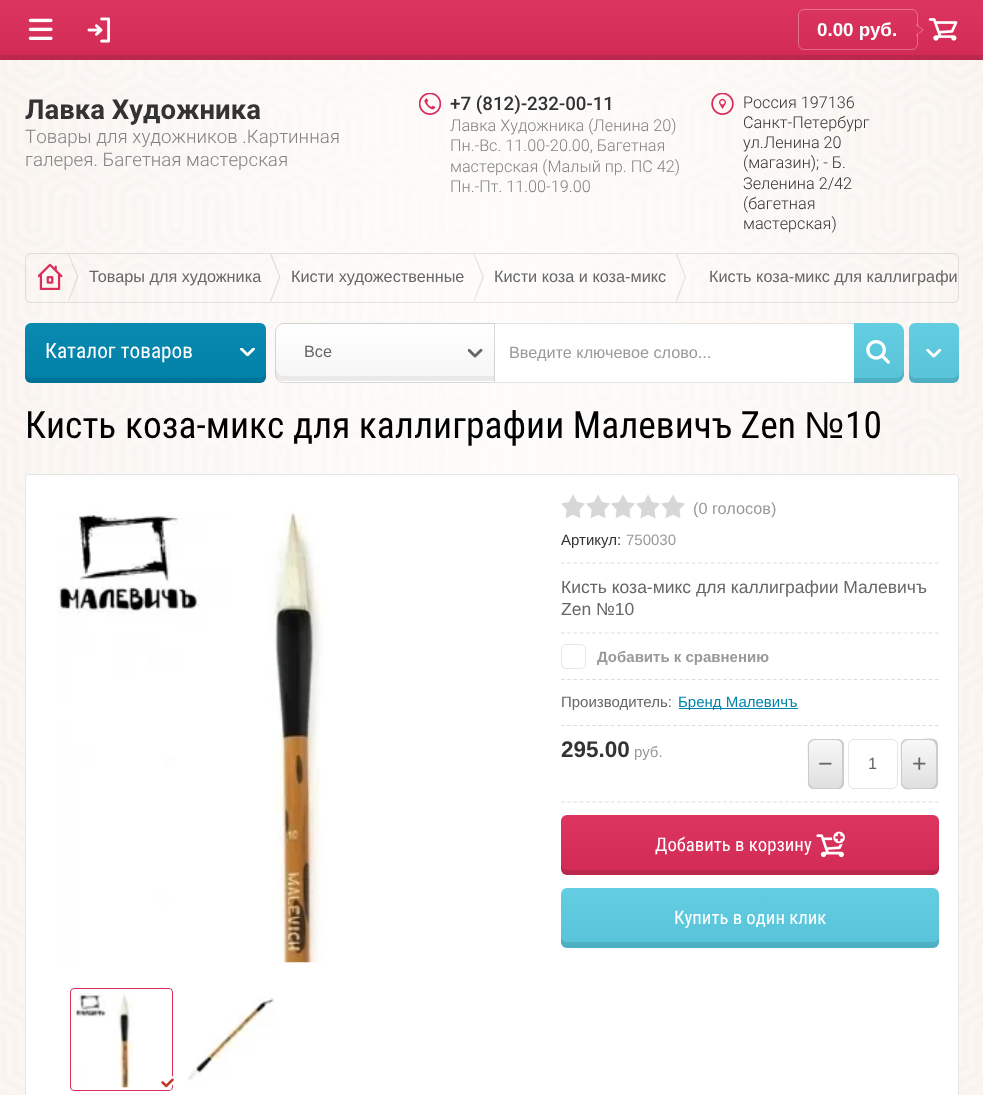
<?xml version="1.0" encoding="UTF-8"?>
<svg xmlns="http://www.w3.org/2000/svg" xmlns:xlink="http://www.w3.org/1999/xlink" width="983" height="1095">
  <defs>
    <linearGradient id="g1" gradientUnits="userSpaceOnUse" x1="492" y1="60" x2="492" y2="0"><stop offset="0" stop-color="#d12b55" /><stop offset="1" stop-color="#db3560" /></linearGradient>
    <linearGradient id="g2" gradientUnits="userSpaceOnUse" x1="146" y1="383" x2="146" y2="323"><stop offset="0" stop-color="#007fa7" /><stop offset="1" stop-color="#0a89b1" /></linearGradient>
    <clipPath id="clip1"><path d="M 284 323 h 211 v 60 h -211 c -5 0 -9 -4 -9 -9 v -42 c 0 -5 4 -9 9 -9 z" /></clipPath>
    <linearGradient id="g3" gradientUnits="userSpaceOnUse" x1="385" y1="324" x2="385" y2="266"><stop offset="0" stop-color="#f5f5f5" /><stop offset="1" stop-color="#ffffff" /></linearGradient>
    <linearGradient id="g4" gradientUnits="userSpaceOnUse" x1="385" y1="381" x2="385" y2="324"><stop offset="0" stop-color="#f5f5f5" /><stop offset="1" stop-color="#ffffff" /></linearGradient>
    <linearGradient id="g5" gradientUnits="userSpaceOnUse" x1="385" y1="439" x2="385" y2="381"><stop offset="0" stop-color="#f5f5f5" /><stop offset="1" stop-color="#ffffff" /></linearGradient>
    <linearGradient id="g6" gradientUnits="userSpaceOnUse" x1="879" y1="383" x2="879" y2="323"><stop offset="0" stop-color="#58c3d8" /><stop offset="1" stop-color="#63cde2" /></linearGradient>
    <linearGradient id="g7" gradientUnits="userSpaceOnUse" x1="934" y1="383" x2="934" y2="323"><stop offset="0" stop-color="#58c3d8" /><stop offset="1" stop-color="#63cde2" /></linearGradient>
    <linearGradient id="g8" gradientUnits="userSpaceOnUse" x1="826" y1="739" x2="826" y2="789"><stop offset="0" stop-color="#f8f8f8" /><stop offset="1" stop-color="#dfdfdf" /></linearGradient>
    <linearGradient id="g9" gradientUnits="userSpaceOnUse" x1="919" y1="739" x2="919" y2="789"><stop offset="0" stop-color="#f8f8f8" /><stop offset="1" stop-color="#dfdfdf" /></linearGradient>
    <linearGradient id="g10" gradientUnits="userSpaceOnUse" x1="750" y1="875" x2="750" y2="815"><stop offset="0" stop-color="#d12b55" /><stop offset="1" stop-color="#db3560" /></linearGradient>
    <linearGradient id="g11" gradientUnits="userSpaceOnUse" x1="750" y1="948" x2="750" y2="888"><stop offset="0" stop-color="#58c3d8" /><stop offset="1" stop-color="#63cde2" /></linearGradient>
    <clipPath id="clip2"><rect x="509" y="343" width="332" height="18" /></clipPath>
  </defs>
  <rect width="100%" height="100%" fill="#ffffff" />
  <image x="0" y="60" width="983" height="1035" xlink:href="image1.png" />
  <rect width="983" height="55" fill="url(#g1)" />
  <rect y="55" width="983" height="5" fill="#bc274d" />
  <image x="28" y="18" width="25" height="22" xlink:href="image2.png" />
  <image x="87" y="17" width="23" height="26" xlink:href="image3.png" />
  <rect x="798.5" y="9.5" width="119" height="40" rx="5.5" fill="none" stroke="#ffffff" stroke-opacity="0.3" />
  <path d="M 916 36 v -12 l 8 6 z" fill="#ffffff" fill-opacity="0.3" />
  <path d="M 916 35 v -10 l 6.5 5 z" fill="#db315c" />
  <image x="928" y="18" width="30" height="23" xlink:href="image4.png" />
  <image x="419" y="93" width="22" height="22" xlink:href="image5.png" />
  <image x="711" y="93" width="23" height="22" xlink:href="image6.png" />
  <rect x="25.5" y="253.5" width="933" height="49" rx="5.5" fill="none" stroke="#000000" stroke-opacity="0.1" />
  <image x="38" y="264" width="25" height="26" xlink:href="image7.png" />
  <path d="M 69 254 l 9.5 23 h -1.5 l -9 -23 z m 8 23 h 1.5 l -9.5 24 h -1 z" fill="#000000" fill-opacity="0.1" />
  <path d="M 271.5 254 l 9 23 h -1.5 l -9 -23 z m 7.5 23 h 1.5 l -9 24 h -1.5 z" fill="#000000" fill-opacity="0.1" />
  <path d="M 474.5 254 l 9.5 23 h -1.5 l -9 -23 z m 8 23 h 1.5 l -9.5 24 h -1 z" fill="#e4e2e1" />
  <path d="M 677 254 l 9 23 h -1 l -9.5 -23 z m 8 23 h 1 l -9 24 h -1.5 z" fill="#e3e0de" />
  <rect x="25" y="323" width="241" height="60" rx="6" fill="url(#g2)" />
  <path d="M 25 371 v 6 c 0 3 3 6 6 6 h 229 c 3 0 6 -3 6 -6 v -6 c 0 4 -3 7 -6 7 h -229 c -3 0 -6 -3 -6 -7 z" fill="#000000" fill-opacity="0.1" />
  <image x="240" y="348" width="15" height="8" xlink:href="image8.png" />
  <rect x="275" y="323" width="629" height="60" rx="9" fill="#ffffff" />
  <rect x="275.5" y="323.5" width="628" height="59" rx="8.5" fill="none" stroke="#000000" stroke-opacity="0.1" />
  <g clip-path="url(#clip1)">
    <rect x="275" y="323" width="220" height="1" fill="url(#g3)" />
    <rect x="275" y="324" width="220" height="57" fill="url(#g4)" />
    <rect x="275" y="381" width="220" height="2" fill="url(#g5)" />
  </g>
  <path d="M 276 369 v 4 c 0 4 4 8 8 8 h 210 v -5 h -210 c -4 0 -8 -3 -8 -7 z" fill="#e9e9e9" />
  <path d="M 284 323.5 h 210.5 v 59 h -210.5 c -4.5 0 -8.5 -4 -8.5 -8.5 v -42 c 0 -4.5 4 -8.5 8.5 -8.5 z" fill="none" stroke="#000000" stroke-opacity="0.15" />
  <image x="468" y="349" width="15" height="9" xlink:href="image9.png" />
  <path d="M 854 323 h 41 c 5 0 9 4 9 9 v 42 c 0 5 -4 9 -9 9 h -41 z" fill="url(#g6)" />
  <path d="M 854 378 v 5 h 41 c 5 0 9 -4 9 -9 v -5 c 0 5 -4 9 -9 9 z" fill="#000000" fill-opacity="0.1" />
  <image x="866" y="340" width="24" height="24" xlink:href="image10.png" />
  <rect x="909" y="323" width="50" height="60" rx="6" fill="url(#g7)" />
  <path d="M 909 371 c 0 11 0 12 12 12 h 26 c 12 0 12 -1 12 -12 c 0 4 -3 7 -7 7 h -37 c -3 0 -6 -3 -6 -7 z" fill="#000000" fill-opacity="0.1" />
  <image x="926" y="349" width="15" height="9" xlink:href="image11.png" />
  <rect x="25" y="474" width="934" height="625" rx="4" fill="#ffffff" />
  <rect x="25.5" y="474.5" width="933" height="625" rx="3.5" fill="none" stroke="#000000" stroke-opacity="0.1" />
  <image x="57" y="511" width="268" height="452" xlink:href="image12.png" />
  <rect x="70.5" y="988.5" width="102" height="102" rx="3.5" fill="none" stroke="#da2d59" />
  <image x="74" y="991" width="61" height="97" xlink:href="image13.png" />
  <path d="M 171 1077.5 v 12.5 l -6 -6 z" fill="#ffffff" />
  <path d="M 171 1090 h -12 l 6 -6 z" fill="#ffffff" />
  <image x="161" y="1076" width="13" height="12" xlink:href="image14.png" />
  <image x="187" y="997" width="88" height="84" xlink:href="image15.png" />
  <image x="561" y="494" width="124" height="25" xlink:href="image16.png" />
  <path d="M 561 563 h 378" fill="none" stroke="#dddddd" stroke-width="1.2" stroke-dasharray="3.75 2.48" />
  <path d="M 561 633 h 378" fill="none" stroke="#dddddd" stroke-width="1.2" stroke-dasharray="3.75 2.48" />
  <path d="M 561 679.5 h 378" fill="none" stroke="#dddddd" stroke-width="1.2" stroke-dasharray="3.75 2.48" />
  <rect x="561.5" y="644.5" width="24" height="24" rx="4.5" fill="none" stroke="#e6e6e6" />
  <path d="M 561 725.5 h 378" fill="none" stroke="#dddddd" stroke-width="1.2" stroke-dasharray="3.75 2.48" />
  <rect x="679" y="708" width="119" height="1" fill="#0084ae" />
  <path d="M 561 802 h 378" fill="none" stroke="#dddddd" stroke-width="1.2" stroke-dasharray="3.75 2.48" />
  <rect x="808" y="739" width="36" height="50" rx="6" fill="url(#g8)" />
  <path d="M 810 741 c -1 1 -2 2 -2 4 v 38 c 0 3 3 6 6 6 h 24 c 2 0 4 -1 5 -3 c -1 1 -2 2 -4 2 h -24 c -3 0 -6 -3 -6 -7 v -37 c 0 -1 0 -3 1 -3 z" fill="#cccccc" />
  <path d="M 812 740 h 24 c 4 0 6 3 6 6 v 38 c 0 2 -1 4 -2 5 c 2 -1 4 -3 4 -6 v -38 c 0 -3 -3 -6 -6 -6 h -24 c -1 0 -3 1 -4 1 z" fill="#cccccc" />
  <path d="M 810 788 c 1 0 3 1 4 1 h 24 c 3 0 6 -3 6 -6 v -38 c 0 -2 -1 -4 -3 -5 c 2 2 1 8 1 10 v 25 c 0 4 1 12 -5 13 z" fill="#cccccc" />
  <path d="M 815 740 h 24 c 1 0 3 1 4 2 c -3 -4 -9 -3 -13 -3 c -26 0 -22 -2 -22 25 v 13 c 0 3 -1 9 3 11 c -1 -1 -2 -3 -2 -4 v -38 c 0 -3 3 -6 6 -6 z" fill="#cccccc" />
  <rect x="848.5" y="739.5" width="49" height="49" rx="5.5" fill="none" stroke="#e6e6e6" />
  <rect x="901" y="739" width="37" height="50" rx="6" fill="url(#g9)" />
  <path d="M 903 740 c -1 2 -2 3 -2 5 v 38 c 0 3 3 6 6 6 h 25 c 2 0 5 -1 5 -4 c -3 4 -9 3 -13 3 c -26 0 -22 2 -22 -26 v -12 c 0 -2 -1 -7 1 -10 z" fill="#cccccc" />
  <path d="M 906 740 c 35 0 30 -5 30 31 v 7 c 0 4 1 8 -3 11 c 3 -1 5 -3 5 -6 v -38 c 0 -3 -3 -6 -6 -6 h -25 c -2 0 -4 1 -5 3 c 1 -1 3 -2 4 -2 z" fill="#cccccc" />
  <path d="M 902 786 c 2 5 9 3 13 3 c 27 0 23 2 23 -25 v -13 c 0 -4 1 -10 -4 -12 c 1 1 2 3 2 5 v 37 c 0 4 -3 7 -6 7 h -24 c -2 0 -3 -1 -4 -2 z" fill="#cccccc" />
  <path d="M 909 740 h 23 c 2 0 4 1 5 2 c -2 -5 -9 -3 -13 -3 c -27 0 -23 -2 -23 25 v 13 c 0 4 -1 9 3 11 c -1 -1 -2 -2 -2 -4 v -38 c 0 -3 3 -6 7 -6 z" fill="#cccccc" />
  <rect x="561" y="815" width="378" height="60" rx="6" fill="url(#g10)" />
  <path d="M 561 864 v 5 c 0 3 3 6 6 6 h 366 c 3 0 6 -3 6 -6 v -5 c 0 3 -3 6 -7 6 h -364 c -4 0 -7 -3 -7 -6 z" fill="#000000" fill-opacity="0.1" />
  <image x="816" y="831" width="29" height="27" xlink:href="image17.png" />
  <rect x="561" y="888" width="378" height="60" rx="6" fill="url(#g11)" />
  <path d="M 561 936 v 6 c 0 3 3 6 6 6 h 366 c 3 0 6 -3 6 -6 v -6 c 0 4 -3 6 -7 6 h -364 c -4 0 -7 -2 -7 -6 z" fill="#000000" fill-opacity="0.1" />
  <text x="817" y="36" style="font-family: Liberation Sans; font-size: 18.75px; font-weight: bold; fill: #ffffff">0.00 руб.</text>
  <text x="25" y="119" style="font-family: Roboto; font-size: 27.5px; font-weight: bold; fill: #333333">Лавка Художника</text>
  <text x="25" y="143" style="font-family: Roboto; font-size: 18.75px; font-weight: 300; fill: #828282">Товары для художников .Картинная</text>
  <text x="25" y="166" style="font-family: Roboto; font-size: 18.75px; font-weight: 300; fill: #828282">галерея. Багетная мастерская</text>
  <text x="450" y="110" style="font-family: Roboto; font-size: 18.75px; font-weight: 500; fill: #333333">+7 (812)-232-00-11</text>
  <text x="450" y="131" style="font-family: Roboto; font-size: 16.25px; font-weight: 300; fill: #828282">Лавка Художника (Ленина 20)</text>
  <text x="450" y="151" style="font-family: Roboto; font-size: 16.25px; font-weight: 300; fill: #828282">Пн.-Вс. 11.00-20.00, Багетная</text>
  <text x="450" y="172" style="font-family: Roboto; font-size: 16.25px; font-weight: 300; fill: #828282">мастерская (Малый пр. ПС 42)</text>
  <text x="450" y="192" style="font-family: Roboto; font-size: 16.25px; font-weight: 300; fill: #828282">Пн.-Пт. 11.00-19.00</text>
  <text x="743" y="108" style="font-family: Roboto; font-size: 16.25px; font-weight: 300; fill: #333333">Россия 197136</text>
  <text x="743" y="128" style="font-family: Roboto; font-size: 16.25px; font-weight: 300; fill: #333333">Санкт-Петербург</text>
  <text x="743" y="148" style="font-family: Roboto; font-size: 16.25px; font-weight: 300; fill: #333333">ул.Ленина 20</text>
  <text x="743" y="168" style="font-family: Roboto; font-size: 16.25px; font-weight: 300; fill: #333333">(магазин); - Б.</text>
  <text x="743" y="189" style="font-family: Roboto; font-size: 16.25px; font-weight: 300; fill: #333333">Зеленина 2/42</text>
  <text x="743" y="209" style="font-family: Roboto; font-size: 16.25px; font-weight: 300; fill: #333333">(багетная</text>
  <text x="743" y="229" style="font-family: Roboto; font-size: 16.25px; font-weight: 300; fill: #333333">мастерская)</text>
  <text x="89" y="282" style="font-family: Liberation Sans; font-size: 16.25px; fill: #666666">Товары для художника</text>
  <text x="291" y="282" style="font-family: Liberation Sans; font-size: 16.25px; fill: #666666">Кисти художественные</text>
  <text x="494" y="282" style="font-family: Liberation Sans; font-size: 16.25px; fill: #666666">Кисти коза и коза-микс</text>
  <text x="709" y="282" style="font-family: Liberation Sans; font-size: 16.25px; fill: #666666">Кисть коза-микс для каллиграфи</text>
  <text x="45" y="358" style="font-family: Roboto Condensed; font-size: 21.25px; fill: #ffffff">Каталог товаров</text>
  <text x="304" y="357" style="font-family: Liberation Sans; font-size: 16.25px; fill: #666666">Все</text>
  <g clip-path="url(#clip2)">
    <text x="509" y="358" style="font-family: Liberation Sans; font-size: 16.25px; fill: #999999">Введите ключевое слово...</text>
  </g>
  <text x="25" y="438" style="font-family: Roboto Condensed; font-size: 37.5px; fill: #000000">Кисть коза-микс для каллиграфии Малевичъ Zen</text>
  <text x="804" y="438" style="font-family: Liberation Sans; font-size: 37.5px; fill: #000000">№</text>
  <text x="845" y="438" style="font-family: Roboto Condensed; font-size: 37.5px; fill: #000000">10</text>
  <text x="693" y="514" style="font-family: Liberation Sans; font-size: 16.25px; fill: #999999">(0 голосов)</text>
  <text x="561" y="545" style="font-family: Liberation Sans; font-size: 15px; fill: #333333">Артикул:</text>
  <text x="626" y="545" style="font-family: Liberation Sans; font-size: 15px; fill: #999999">750030</text>
  <text x="561" y="593" style="font-family: Liberation Sans; font-size: 17.5px; fill: #666666">Кисть коза-микс для каллиграфии Малевичъ</text>
  <text x="561" y="615" style="font-family: Liberation Sans; font-size: 17.5px; fill: #666666">Zen №10</text>
  <text x="597" y="662" style="font-family: Liberation Sans; font-size: 15px; font-weight: bold; fill: #999999">Добавить к сравнению</text>
  <text x="561" y="707" style="font-family: Liberation Sans; font-size: 15px; fill: #666666">Производитель:</text>
  <text x="678" y="707" style="font-family: Liberation Sans; font-size: 15px; fill: #0084ae">Бренд Малевичъ</text>
  <text x="561" y="757" style="font-family: Liberation Sans; font-size: 22.5px; font-weight: bold; fill: #333333">295.00</text>
  <text x="634" y="757" style="font-family: Liberation Sans; font-size: 15px; fill: #999999">руб.</text>
  <text x="818" y="772" style="font-family: Liberation Sans; font-size: 25px; fill: #666666">−</text>
  <text x="868" y="769" style="font-family: Liberation Sans; font-size: 16.25px; fill: #666666">1</text>
  <text x="912" y="772" style="font-family: Liberation Sans; font-size: 25px; fill: #666666">+</text>
  <text x="655" y="851" style="font-family: Roboto Condensed; font-size: 18.75px; fill: #ffffff">Добавить в корзину</text>
  <text x="674" y="924" style="font-family: Roboto Condensed; font-size: 18.75px; fill: #ffffff">Купить в один клик</text>
</svg>
